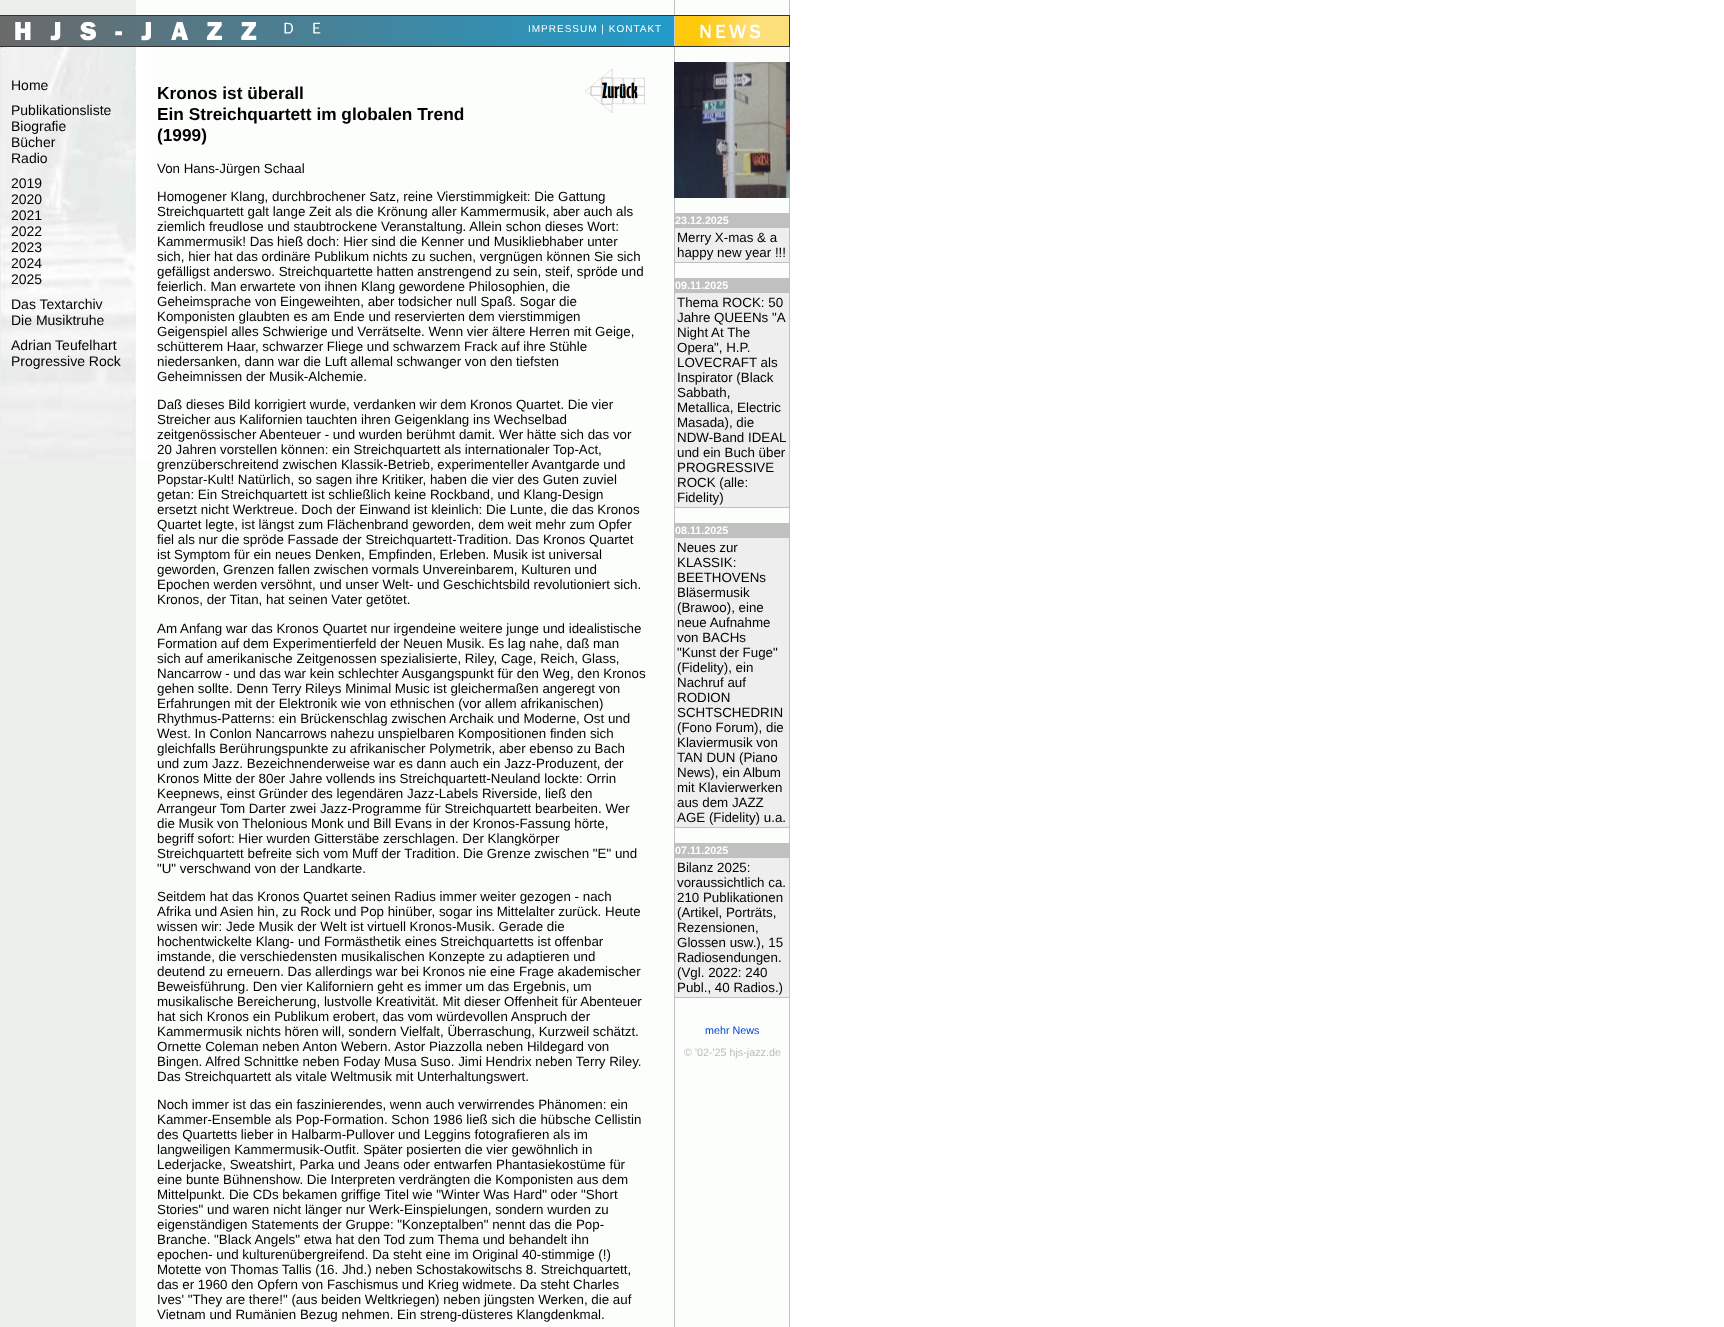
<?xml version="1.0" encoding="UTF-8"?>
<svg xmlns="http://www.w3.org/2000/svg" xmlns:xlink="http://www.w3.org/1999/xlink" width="1724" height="1327">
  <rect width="100%" height="100%" fill="#ffffff" />
  <image x="0" y="0" width="790" height="1327" xlink:href="image1.png" />
  <image x="0" y="15" width="674" height="32" xlink:href="image2.png" />
  <image x="674" y="15" width="116" height="32" xlink:href="image3.png" />
  <rect x="136" y="47" width="15" height="413" fill="#ffffff" />
  <image x="1" y="47" width="135" height="413" xlink:href="image4.png" />
  <image x="585" y="69" width="60" height="44" xlink:href="image5.png" />
  <image x="674" y="62" width="116" height="136" xlink:href="image6.png" />
  <rect x="674" y="213" width="116" height="50" fill="#c0c0c0" />
  <rect x="675" y="228" width="114" height="34" fill="#eeeeee" />
  <rect x="674" y="278" width="116" height="230" fill="#c0c0c0" />
  <rect x="675" y="293" width="114" height="214" fill="#eeeeee" />
  <rect x="674" y="523" width="116" height="305" fill="#c0c0c0" />
  <rect x="675" y="538" width="114" height="289" fill="#eeeeee" />
  <rect x="674" y="843" width="116" height="155" fill="#c0c0c0" />
  <rect x="675" y="858" width="114" height="139" fill="#eeeeee" />
  <text x="528" y="32" style="font-family: Liberation Sans; font-size: 10px; letter-spacing: 1px; fill: #ffffff">IMPRESSUM | KONTAKT</text>
  <text x="11" y="90" style="font-family: Liberation Sans; font-size: 14px; fill: #000000">Home</text>
  <text x="11" y="115" style="font-family: Liberation Sans; font-size: 14px; fill: #000000">Publikationsliste</text>
  <text x="11" y="131" style="font-family: Liberation Sans; font-size: 14px; fill: #000000">Biografie</text>
  <text x="11" y="147" style="font-family: Liberation Sans; font-size: 14px; fill: #000000">Bücher</text>
  <text x="11" y="163" style="font-family: Liberation Sans; font-size: 14px; fill: #000000">Radio</text>
  <text x="11" y="188" style="font-family: Liberation Sans; font-size: 14px; fill: #000000">2019</text>
  <text x="11" y="204" style="font-family: Liberation Sans; font-size: 14px; fill: #000000">2020</text>
  <text x="11" y="220" style="font-family: Liberation Sans; font-size: 14px; fill: #000000">2021</text>
  <text x="11" y="236" style="font-family: Liberation Sans; font-size: 14px; fill: #000000">2022</text>
  <text x="11" y="252" style="font-family: Liberation Sans; font-size: 14px; fill: #000000">2023</text>
  <text x="11" y="268" style="font-family: Liberation Sans; font-size: 14px; fill: #000000">2024</text>
  <text x="11" y="284" style="font-family: Liberation Sans; font-size: 14px; fill: #000000">2025</text>
  <text x="11" y="309" style="font-family: Liberation Sans; font-size: 14px; fill: #000000">Das Textarchiv</text>
  <text x="11" y="325" style="font-family: Liberation Sans; font-size: 14px; fill: #000000">Die Musiktruhe</text>
  <text x="11" y="350" style="font-family: Liberation Sans; font-size: 14px; fill: #000000">Adrian Teufelhart</text>
  <text x="11" y="366" style="font-family: Liberation Sans; font-size: 14px; fill: #000000">Progressive Rock</text>
  <text x="157" y="99" style="font-family: Liberation Sans; font-size: 17.3px; font-weight: bold; fill: #000000">Kronos ist überall</text>
  <text x="157" y="120" style="font-family: Liberation Sans; font-size: 17.3px; font-weight: bold; fill: #000000">Ein Streichquartett im globalen Trend</text>
  <text x="157" y="141" style="font-family: Liberation Sans; font-size: 17.3px; font-weight: bold; fill: #000000">(1999)</text>
  <text x="157" y="173" style="font-family: Liberation Sans; font-size: 13.35px; fill: #000000">Von Hans-Jürgen Schaal</text>
  <text x="157" y="201" style="font-family: Liberation Sans; font-size: 13.35px; fill: #000000">Homogener Klang, durchbrochener Satz, reine Vierstimmigkeit: Die Gattung</text>
  <text x="157" y="216" style="font-family: Liberation Sans; font-size: 13.35px; fill: #000000">Streichquartett galt lange Zeit als die Krönung aller Kammermusik, aber auch als</text>
  <text x="157" y="231" style="font-family: Liberation Sans; font-size: 13.35px; fill: #000000">ziemlich freudlose und staubtrockene Veranstaltung. Allein schon dieses Wort:</text>
  <text x="157" y="246" style="font-family: Liberation Sans; font-size: 13.35px; fill: #000000">Kammermusik! Das hieß doch: Hier sind die Kenner und Musikliebhaber unter</text>
  <text x="157" y="261" style="font-family: Liberation Sans; font-size: 13.35px; fill: #000000">sich, hier hat das ordinäre Publikum nichts zu suchen, vergnügen können Sie sich</text>
  <text x="157" y="276" style="font-family: Liberation Sans; font-size: 13.35px; fill: #000000">gefälligst anderswo. Streichquartette hatten anstrengend zu sein, steif, spröde und</text>
  <text x="157" y="291" style="font-family: Liberation Sans; font-size: 13.35px; fill: #000000">feierlich. Man erwartete von ihnen Klang gewordene Philosophien, die</text>
  <text x="157" y="306" style="font-family: Liberation Sans; font-size: 13.35px; fill: #000000">Geheimsprache von Eingeweihten, aber todsicher null Spaß. Sogar die</text>
  <text x="157" y="321" style="font-family: Liberation Sans; font-size: 13.35px; fill: #000000">Komponisten glaubten es am Ende und reservierten dem vierstimmigen</text>
  <text x="157" y="336" style="font-family: Liberation Sans; font-size: 13.35px; fill: #000000">Geigenspiel alles Schwierige und Verrätselte. Wenn vier ältere Herren mit Geige,</text>
  <text x="157" y="351" style="font-family: Liberation Sans; font-size: 13.35px; fill: #000000">schütterem Haar, schwarzer Fliege und schwarzem Frack auf ihre Stühle</text>
  <text x="157" y="366" style="font-family: Liberation Sans; font-size: 13.35px; fill: #000000">niedersanken, dann war die Luft allemal schwanger von den tiefsten</text>
  <text x="157" y="381" style="font-family: Liberation Sans; font-size: 13.35px; fill: #000000">Geheimnissen der Musik-Alchemie.</text>
  <text x="157" y="409" style="font-family: Liberation Sans; font-size: 13.35px; fill: #000000">Daß dieses Bild korrigiert wurde, verdanken wir dem Kronos Quartet. Die vier</text>
  <text x="157" y="424" style="font-family: Liberation Sans; font-size: 13.35px; fill: #000000">Streicher aus Kalifornien tauchten ihren Geigenklang ins Wechselbad</text>
  <text x="157" y="439" style="font-family: Liberation Sans; font-size: 13.35px; fill: #000000">zeitgenössischer Abenteuer - und wurden berühmt damit. Wer hätte sich das vor</text>
  <text x="157" y="454" style="font-family: Liberation Sans; font-size: 13.35px; fill: #000000">20 Jahren vorstellen können: ein Streichquartett als internationaler Top-Act,</text>
  <text x="157" y="469" style="font-family: Liberation Sans; font-size: 13.35px; fill: #000000">grenzüberschreitend zwischen Klassik-Betrieb, experimenteller Avantgarde und</text>
  <text x="157" y="484" style="font-family: Liberation Sans; font-size: 13.35px; fill: #000000">Popstar-Kult! Natürlich, so sagen ihre Kritiker, haben die vier des Guten zuviel</text>
  <text x="157" y="499" style="font-family: Liberation Sans; font-size: 13.35px; fill: #000000">getan: Ein Streichquartett ist schließlich keine Rockband, und Klang-Design</text>
  <text x="157" y="514" style="font-family: Liberation Sans; font-size: 13.35px; fill: #000000">ersetzt nicht Werktreue. Doch der Einwand ist kleinlich: Die Lunte, die das Kronos</text>
  <text x="157" y="529" style="font-family: Liberation Sans; font-size: 13.35px; fill: #000000">Quartet legte, ist längst zum Flächenbrand geworden, dem weit mehr zum Opfer</text>
  <text x="157" y="544" style="font-family: Liberation Sans; font-size: 13.35px; fill: #000000">fiel als nur die spröde Fassade der Streichquartett-Tradition. Das Kronos Quartet</text>
  <text x="157" y="559" style="font-family: Liberation Sans; font-size: 13.35px; fill: #000000">ist Symptom für ein neues Denken, Empfinden, Erleben. Musik ist universal</text>
  <text x="157" y="574" style="font-family: Liberation Sans; font-size: 13.35px; fill: #000000">geworden, Grenzen fallen zwischen vormals Unvereinbarem, Kulturen und</text>
  <text x="157" y="589" style="font-family: Liberation Sans; font-size: 13.35px; fill: #000000">Epochen werden versöhnt, und unser Welt- und Geschichtsbild revolutioniert sich.</text>
  <text x="157" y="604" style="font-family: Liberation Sans; font-size: 13.35px; fill: #000000">Kronos, der Titan, hat seinen Vater getötet.</text>
  <text x="157" y="633" style="font-family: Liberation Sans; font-size: 13.35px; fill: #000000">Am Anfang war das Kronos Quartet nur irgendeine weitere junge und idealistische</text>
  <text x="157" y="648" style="font-family: Liberation Sans; font-size: 13.35px; fill: #000000">Formation auf dem Experimentierfeld der Neuen Musik. Es lag nahe, daß man</text>
  <text x="157" y="663" style="font-family: Liberation Sans; font-size: 13.35px; fill: #000000">sich auf amerikanische Zeitgenossen spezialisierte, Riley, Cage, Reich, Glass,</text>
  <text x="157" y="678" style="font-family: Liberation Sans; font-size: 13.35px; fill: #000000">Nancarrow - und das war kein schlechter Ausgangspunkt für den Weg, den Kronos</text>
  <text x="157" y="693" style="font-family: Liberation Sans; font-size: 13.35px; fill: #000000">gehen sollte. Denn Terry Rileys Minimal Music ist gleichermaßen angeregt von</text>
  <text x="157" y="708" style="font-family: Liberation Sans; font-size: 13.35px; fill: #000000">Erfahrungen mit der Elektronik wie von ethnischen (vor allem afrikanischen)</text>
  <text x="157" y="723" style="font-family: Liberation Sans; font-size: 13.35px; fill: #000000">Rhythmus-Patterns: ein Brückenschlag zwischen Archaik und Moderne, Ost und</text>
  <text x="157" y="738" style="font-family: Liberation Sans; font-size: 13.35px; fill: #000000">West. In Conlon Nancarrows nahezu unspielbaren Kompositionen finden sich</text>
  <text x="157" y="753" style="font-family: Liberation Sans; font-size: 13.35px; fill: #000000">gleichfalls Berührungspunkte zu afrikanischer Polymetrik, aber ebenso zu Bach</text>
  <text x="157" y="768" style="font-family: Liberation Sans; font-size: 13.35px; fill: #000000">und zum Jazz. Bezeichnenderweise war es dann auch ein Jazz-Produzent, der</text>
  <text x="157" y="783" style="font-family: Liberation Sans; font-size: 13.35px; fill: #000000">Kronos Mitte der 80er Jahre vollends ins Streichquartett-Neuland lockte: Orrin</text>
  <text x="157" y="798" style="font-family: Liberation Sans; font-size: 13.35px; fill: #000000">Keepnews, einst Gründer des legendären Jazz-Labels Riverside, ließ den</text>
  <text x="157" y="813" style="font-family: Liberation Sans; font-size: 13.35px; fill: #000000">Arrangeur Tom Darter zwei Jazz-Programme für Streichquartett bearbeiten. Wer</text>
  <text x="157" y="828" style="font-family: Liberation Sans; font-size: 13.35px; fill: #000000">die Musik von Thelonious Monk und Bill Evans in der Kronos-Fassung hörte,</text>
  <text x="157" y="843" style="font-family: Liberation Sans; font-size: 13.35px; fill: #000000">begriff sofort: Hier wurden Gitterstäbe zerschlagen. Der Klangkörper</text>
  <text x="157" y="858" style="font-family: Liberation Sans; font-size: 13.35px; fill: #000000">Streichquartett befreite sich vom Muff der Tradition. Die Grenze zwischen "E" und</text>
  <text x="157" y="873" style="font-family: Liberation Sans; font-size: 13.35px; fill: #000000">"U" verschwand von der Landkarte.</text>
  <text x="157" y="901" style="font-family: Liberation Sans; font-size: 13.35px; fill: #000000">Seitdem hat das Kronos Quartet seinen Radius immer weiter gezogen - nach</text>
  <text x="157" y="916" style="font-family: Liberation Sans; font-size: 13.35px; fill: #000000">Afrika und Asien hin, zu Rock und Pop hinüber, sogar ins Mittelalter zurück. Heute</text>
  <text x="157" y="931" style="font-family: Liberation Sans; font-size: 13.35px; fill: #000000">wissen wir: Jede Musik der Welt ist virtuell Kronos-Musik. Gerade die</text>
  <text x="157" y="946" style="font-family: Liberation Sans; font-size: 13.35px; fill: #000000">hochentwickelte Klang- und Formästhetik eines Streichquartetts ist offenbar</text>
  <text x="157" y="961" style="font-family: Liberation Sans; font-size: 13.35px; fill: #000000">imstande, die verschiedensten musikalischen Konzepte zu adaptieren und</text>
  <text x="157" y="976" style="font-family: Liberation Sans; font-size: 13.35px; fill: #000000">deutend zu erneuern. Das allerdings war bei Kronos nie eine Frage akademischer</text>
  <text x="157" y="991" style="font-family: Liberation Sans; font-size: 13.35px; fill: #000000">Beweisführung. Den vier Kaliforniern geht es immer um das Ergebnis, um</text>
  <text x="157" y="1006" style="font-family: Liberation Sans; font-size: 13.35px; fill: #000000">musikalische Bereicherung, lustvolle Kreativität. Mit dieser Offenheit für Abenteuer</text>
  <text x="157" y="1021" style="font-family: Liberation Sans; font-size: 13.35px; fill: #000000">hat sich Kronos ein Publikum erobert, das vom würdevollen Anspruch der</text>
  <text x="157" y="1036" style="font-family: Liberation Sans; font-size: 13.35px; fill: #000000">Kammermusik nichts hören will, sondern Vielfalt, Überraschung, Kurzweil schätzt.</text>
  <text x="157" y="1051" style="font-family: Liberation Sans; font-size: 13.35px; fill: #000000">Ornette Coleman neben Anton Webern. Astor Piazzolla neben Hildegard von</text>
  <text x="157" y="1066" style="font-family: Liberation Sans; font-size: 13.35px; fill: #000000">Bingen. Alfred Schnittke neben Foday Musa Suso. Jimi Hendrix neben Terry Riley.</text>
  <text x="157" y="1081" style="font-family: Liberation Sans; font-size: 13.35px; fill: #000000">Das Streichquartett als vitale Weltmusik mit Unterhaltungswert.</text>
  <text x="157" y="1109" style="font-family: Liberation Sans; font-size: 13.35px; fill: #000000">Noch immer ist das ein faszinierendes, wenn auch verwirrendes Phänomen: ein</text>
  <text x="157" y="1124" style="font-family: Liberation Sans; font-size: 13.35px; fill: #000000">Kammer-Ensemble als Pop-Formation. Schon 1986 ließ sich die hübsche Cellistin</text>
  <text x="157" y="1139" style="font-family: Liberation Sans; font-size: 13.35px; fill: #000000">des Quartetts lieber in Halbarm-Pullover und Leggins fotografieren als im</text>
  <text x="157" y="1154" style="font-family: Liberation Sans; font-size: 13.35px; fill: #000000">langweiligen Kammermusik-Outfit. Später posierten die vier gewöhnlich in</text>
  <text x="157" y="1169" style="font-family: Liberation Sans; font-size: 13.35px; fill: #000000">Lederjacke, Sweatshirt, Parka und Jeans oder entwarfen Phantasiekostüme für</text>
  <text x="157" y="1184" style="font-family: Liberation Sans; font-size: 13.35px; fill: #000000">eine bunte Bühnenshow. Die Interpreten verdrängten die Komponisten aus dem</text>
  <text x="157" y="1199" style="font-family: Liberation Sans; font-size: 13.35px; fill: #000000">Mittelpunkt. Die CDs bekamen griffige Titel wie "Winter Was Hard" oder "Short</text>
  <text x="157" y="1214" style="font-family: Liberation Sans; font-size: 13.35px; fill: #000000">Stories" und waren nicht länger nur Werk-Einspielungen, sondern wurden zu</text>
  <text x="157" y="1229" style="font-family: Liberation Sans; font-size: 13.35px; fill: #000000">eigenständigen Statements der Gruppe: "Konzeptalben" nennt das die Pop-</text>
  <text x="157" y="1244" style="font-family: Liberation Sans; font-size: 13.35px; fill: #000000">Branche. "Black Angels" etwa hat den Tod zum Thema und behandelt ihn</text>
  <text x="157" y="1259" style="font-family: Liberation Sans; font-size: 13.35px; fill: #000000">epochen- und kulturenübergreifend. Da steht eine im Original 40-stimmige (!)</text>
  <text x="157" y="1274" style="font-family: Liberation Sans; font-size: 13.35px; fill: #000000">Motette von Thomas Tallis (16. Jhd.) neben Schostakowitschs 8. Streichquartett,</text>
  <text x="157" y="1289" style="font-family: Liberation Sans; font-size: 13.35px; fill: #000000">das er 1960 den Opfern von Faschismus und Krieg widmete. Da steht Charles</text>
  <text x="157" y="1304" style="font-family: Liberation Sans; font-size: 13.35px; fill: #000000">Ives' "They are there!" (aus beiden Weltkriegen) neben jüngsten Werken, die auf</text>
  <text x="157" y="1319" style="font-family: Liberation Sans; font-size: 13.35px; fill: #000000">Vietnam und Rumänien Bezug nehmen. Ein streng-düsteres Klangdenkmal.</text>
  <text x="675" y="224" style="font-family: Liberation Sans; font-size: 10.75px; font-weight: bold; fill: #ffffff">23.12.2025</text>
  <text x="677" y="242" style="font-family: Liberation Sans; font-size: 13.35px; fill: #000000">Merry X-mas &amp; a</text>
  <text x="677" y="257" style="font-family: Liberation Sans; font-size: 13.35px; fill: #000000">happy new year !!!</text>
  <text x="675" y="289" style="font-family: Liberation Sans; font-size: 10.75px; font-weight: bold; fill: #ffffff">09.11.2025</text>
  <text x="677" y="307" style="font-family: Liberation Sans; font-size: 13.35px; fill: #000000">Thema ROCK: 50</text>
  <text x="677" y="322" style="font-family: Liberation Sans; font-size: 13.35px; fill: #000000">Jahre QUEENs "A</text>
  <text x="677" y="337" style="font-family: Liberation Sans; font-size: 13.35px; fill: #000000">Night At The</text>
  <text x="677" y="352" style="font-family: Liberation Sans; font-size: 13.35px; fill: #000000">Opera", H.P.</text>
  <text x="677" y="367" style="font-family: Liberation Sans; font-size: 13.35px; fill: #000000">LOVECRAFT als</text>
  <text x="677" y="382" style="font-family: Liberation Sans; font-size: 13.35px; fill: #000000">Inspirator (Black</text>
  <text x="677" y="397" style="font-family: Liberation Sans; font-size: 13.35px; fill: #000000">Sabbath,</text>
  <text x="677" y="412" style="font-family: Liberation Sans; font-size: 13.35px; fill: #000000">Metallica, Electric</text>
  <text x="677" y="427" style="font-family: Liberation Sans; font-size: 13.35px; fill: #000000">Masada), die</text>
  <text x="677" y="442" style="font-family: Liberation Sans; font-size: 13.35px; fill: #000000">NDW-Band IDEAL</text>
  <text x="677" y="457" style="font-family: Liberation Sans; font-size: 13.35px; fill: #000000">und ein Buch über</text>
  <text x="677" y="472" style="font-family: Liberation Sans; font-size: 13.35px; fill: #000000">PROGRESSIVE</text>
  <text x="677" y="487" style="font-family: Liberation Sans; font-size: 13.35px; fill: #000000">ROCK (alle:</text>
  <text x="677" y="502" style="font-family: Liberation Sans; font-size: 13.35px; fill: #000000">Fidelity)</text>
  <text x="675" y="534" style="font-family: Liberation Sans; font-size: 10.75px; font-weight: bold; fill: #ffffff">08.11.2025</text>
  <text x="677" y="552" style="font-family: Liberation Sans; font-size: 13.35px; fill: #000000">Neues zur</text>
  <text x="677" y="567" style="font-family: Liberation Sans; font-size: 13.35px; fill: #000000">KLASSIK:</text>
  <text x="677" y="582" style="font-family: Liberation Sans; font-size: 13.35px; fill: #000000">BEETHOVENs</text>
  <text x="677" y="597" style="font-family: Liberation Sans; font-size: 13.35px; fill: #000000">Bläsermusik</text>
  <text x="677" y="612" style="font-family: Liberation Sans; font-size: 13.35px; fill: #000000">(Brawoo), eine</text>
  <text x="677" y="627" style="font-family: Liberation Sans; font-size: 13.35px; fill: #000000">neue Aufnahme</text>
  <text x="677" y="642" style="font-family: Liberation Sans; font-size: 13.35px; fill: #000000">von BACHs</text>
  <text x="677" y="657" style="font-family: Liberation Sans; font-size: 13.35px; fill: #000000">"Kunst der Fuge"</text>
  <text x="677" y="672" style="font-family: Liberation Sans; font-size: 13.35px; fill: #000000">(Fidelity), ein</text>
  <text x="677" y="687" style="font-family: Liberation Sans; font-size: 13.35px; fill: #000000">Nachruf auf</text>
  <text x="677" y="702" style="font-family: Liberation Sans; font-size: 13.35px; fill: #000000">RODION</text>
  <text x="677" y="717" style="font-family: Liberation Sans; font-size: 13.35px; fill: #000000">SCHTSCHEDRIN</text>
  <text x="677" y="732" style="font-family: Liberation Sans; font-size: 13.35px; fill: #000000">(Fono Forum), die</text>
  <text x="677" y="747" style="font-family: Liberation Sans; font-size: 13.35px; fill: #000000">Klaviermusik von</text>
  <text x="677" y="762" style="font-family: Liberation Sans; font-size: 13.35px; fill: #000000">TAN DUN (Piano</text>
  <text x="677" y="777" style="font-family: Liberation Sans; font-size: 13.35px; fill: #000000">News), ein Album</text>
  <text x="677" y="792" style="font-family: Liberation Sans; font-size: 13.35px; fill: #000000">mit Klavierwerken</text>
  <text x="677" y="807" style="font-family: Liberation Sans; font-size: 13.35px; fill: #000000">aus dem JAZZ</text>
  <text x="677" y="822" style="font-family: Liberation Sans; font-size: 13.35px; fill: #000000">AGE (Fidelity) u.a.</text>
  <text x="675" y="854" style="font-family: Liberation Sans; font-size: 10.75px; font-weight: bold; fill: #ffffff">07.11.2025</text>
  <text x="677" y="872" style="font-family: Liberation Sans; font-size: 13.35px; fill: #000000">Bilanz 2025:</text>
  <text x="677" y="887" style="font-family: Liberation Sans; font-size: 13.35px; fill: #000000">voraussichtlich ca.</text>
  <text x="677" y="902" style="font-family: Liberation Sans; font-size: 13.35px; fill: #000000">210 Publikationen</text>
  <text x="677" y="917" style="font-family: Liberation Sans; font-size: 13.35px; fill: #000000">(Artikel, Porträts,</text>
  <text x="677" y="932" style="font-family: Liberation Sans; font-size: 13.35px; fill: #000000">Rezensionen,</text>
  <text x="677" y="947" style="font-family: Liberation Sans; font-size: 13.35px; fill: #000000">Glossen usw.), 15</text>
  <text x="677" y="962" style="font-family: Liberation Sans; font-size: 13.35px; fill: #000000">Radiosendungen.</text>
  <text x="677" y="977" style="font-family: Liberation Sans; font-size: 13.35px; fill: #000000">(Vgl. 2022: 240</text>
  <text x="677" y="992" style="font-family: Liberation Sans; font-size: 13.35px; fill: #000000">Publ., 40 Radios.)</text>
  <text x="705" y="1034" style="font-family: Liberation Sans; font-size: 10.75px; fill: #0045dd">mehr News</text>
  <text x="684" y="1056" style="font-family: Liberation Sans; font-size: 10.75px; fill: #bbbbbb">© '02-'25 hjs-jazz.de</text>
</svg>
